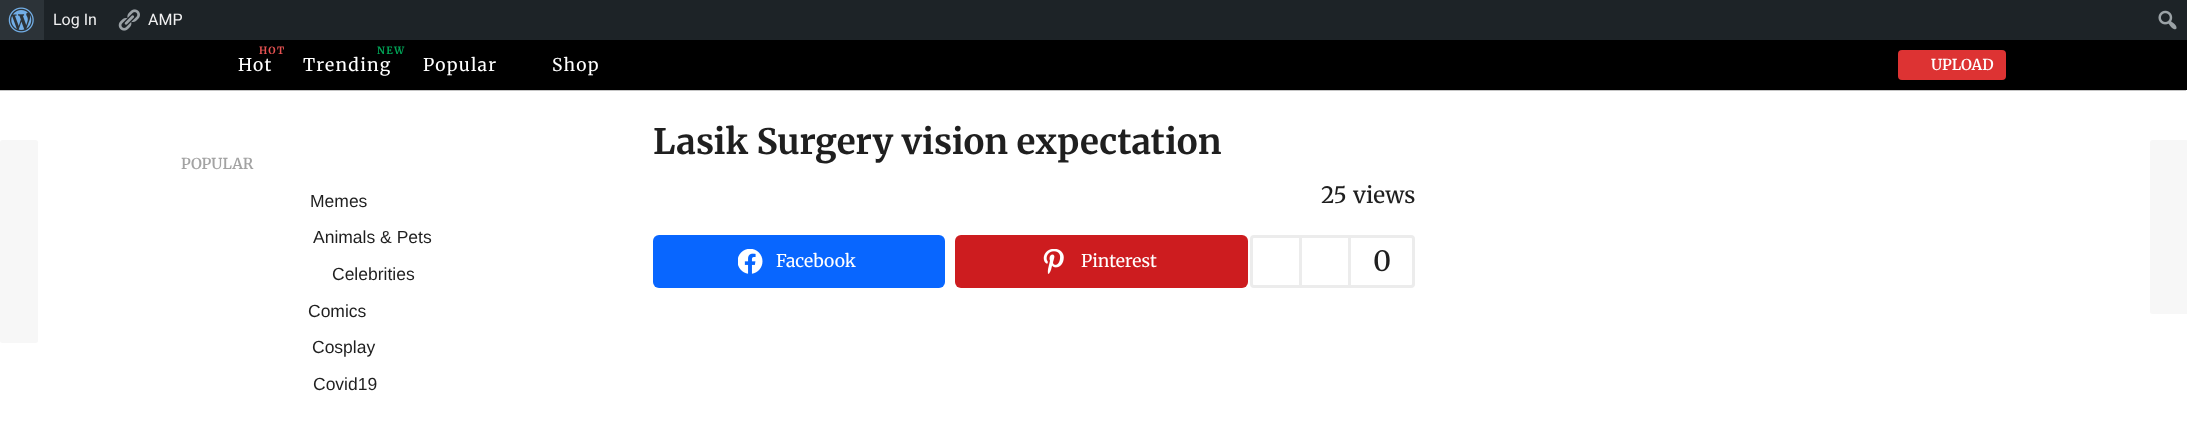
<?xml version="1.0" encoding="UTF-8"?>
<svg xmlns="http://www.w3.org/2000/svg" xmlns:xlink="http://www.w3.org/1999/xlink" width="2187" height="422">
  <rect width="100%" height="100%" fill="#ffffff" />
  <rect x="-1" y="41" width="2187" height="50" fill="#2a2a2a" fill-opacity="0.27" filter="blur(0.5px)" />
  <rect x="44" width="2143" height="40" fill="#1d2327" />
  <rect width="44" height="40" fill="#2c3338" />
  <image x="8" y="7" width="26" height="26" xlink:href="image1.png" />
  <image x="118" y="9" width="22" height="22" xlink:href="image2.png" />
  <image x="2158" y="10" width="19" height="20" xlink:href="image3.png" />
  <rect y="40" width="2187" height="50" fill="#000000" />
  <rect x="1898" y="50" width="108" height="30" rx="4" fill="#dd3333" />
  <rect x="653" y="235" width="292" height="53" rx="6" fill="#0866ff" />
  <image x="738" y="249" width="25" height="25" xlink:href="image4.png" />
  <rect x="955" y="235" width="293" height="53" rx="6" fill="#cd1c1f" />
  <image x="1043" y="249" width="21" height="25" xlink:href="image5.png" />
  <rect x="1251.5" y="236.5" width="162" height="50" rx="2.5" fill="none" stroke="#ececec" stroke-width="3" />
  <rect x="1299" y="238" width="3" height="47" fill="#ececec" />
  <rect x="1348" y="238" width="3" height="47" fill="#ececec" />
  <rect y="140" width="38" height="203" rx="2.5" fill="#f7f7f7" />
  <rect x="2150" y="140" width="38" height="174" rx="2.5" fill="#f7f7f7" />
  <text x="53" y="25" style="font-family: Roboto; font-size: 16px; fill: #f0f0f1">Log In</text>
  <text x="148" y="25" style="font-family: Roboto; font-size: 16px; fill: #f0f0f1">AMP</text>
  <text x="259" y="54" style="font-family: Merriweather; font-size: 10px; font-weight: bold; letter-spacing: 1.25px; fill: #e65252">HOT</text>
  <text x="238" y="71" style="font-family: Merriweather; font-size: 17.5px; letter-spacing: 1.25px; fill: #ffffff">Hot</text>
  <text x="377" y="54" style="font-family: Merriweather; font-size: 10px; font-weight: bold; letter-spacing: 1.25px; fill: #00a256">NEW</text>
  <text x="303" y="71" style="font-family: Merriweather; font-size: 17.5px; letter-spacing: 1.25px; fill: #ffffff">Trending</text>
  <text x="423" y="71" style="font-family: Merriweather; font-size: 17.5px; letter-spacing: 1.25px; fill: #ffffff">Popular</text>
  <text x="552" y="71" style="font-family: Merriweather; font-size: 17.5px; letter-spacing: 1.25px; fill: #ffffff">Shop</text>
  <text x="1931" y="70" style="font-family: Merriweather; font-size: 15px; font-weight: 600; fill: #ffffff">UPLOAD</text>
  <text x="181" y="169" style="font-family: Merriweather; font-size: 15px; font-weight: 600; fill: #a3a3a3">POPULAR</text>
  <text x="310" y="207" style="font-family: Liberation Sans; font-size: 17.5px; fill: #1f1f1f">Memes</text>
  <text x="313" y="243" style="font-family: Liberation Sans; font-size: 17.5px; fill: #1f1f1f">Animals &amp; Pets</text>
  <text x="332" y="280" style="font-family: Liberation Sans; font-size: 17.5px; fill: #1f1f1f">Celebrities</text>
  <text x="308" y="317" style="font-family: Liberation Sans; font-size: 17.5px; fill: #1f1f1f">Comics</text>
  <text x="312" y="353" style="font-family: Liberation Sans; font-size: 17.5px; fill: #1f1f1f">Cosplay</text>
  <text x="313" y="390" style="font-family: Liberation Sans; font-size: 17.5px; fill: #1f1f1f">Covid19</text>
  <text x="653" y="154" style="font-family: Merriweather; font-size: 35px; font-weight: bold; fill: #1f1f1f">Lasik Surgery vision expectation</text>
  <text x="1321" y="203" style="font-family: Merriweather; font-size: 22.5px; font-weight: 500; fill: #1f1f1f">25</text>
  <text x="1353" y="203" style="font-family: Merriweather; font-size: 22.5px; font-weight: 500; fill: #1f1f1f">views</text>
  <text x="776" y="267" style="font-family: Merriweather; font-size: 17.5px; fill: #ffffff">Facebook</text>
  <text x="1081" y="267" style="font-family: Merriweather; font-size: 17.5px; fill: #ffffff">Pinterest</text>
  <text x="1373" y="271" style="font-family: Merriweather; font-size: 28px; font-weight: 500; fill: #1f1f1f">0</text>
</svg>
